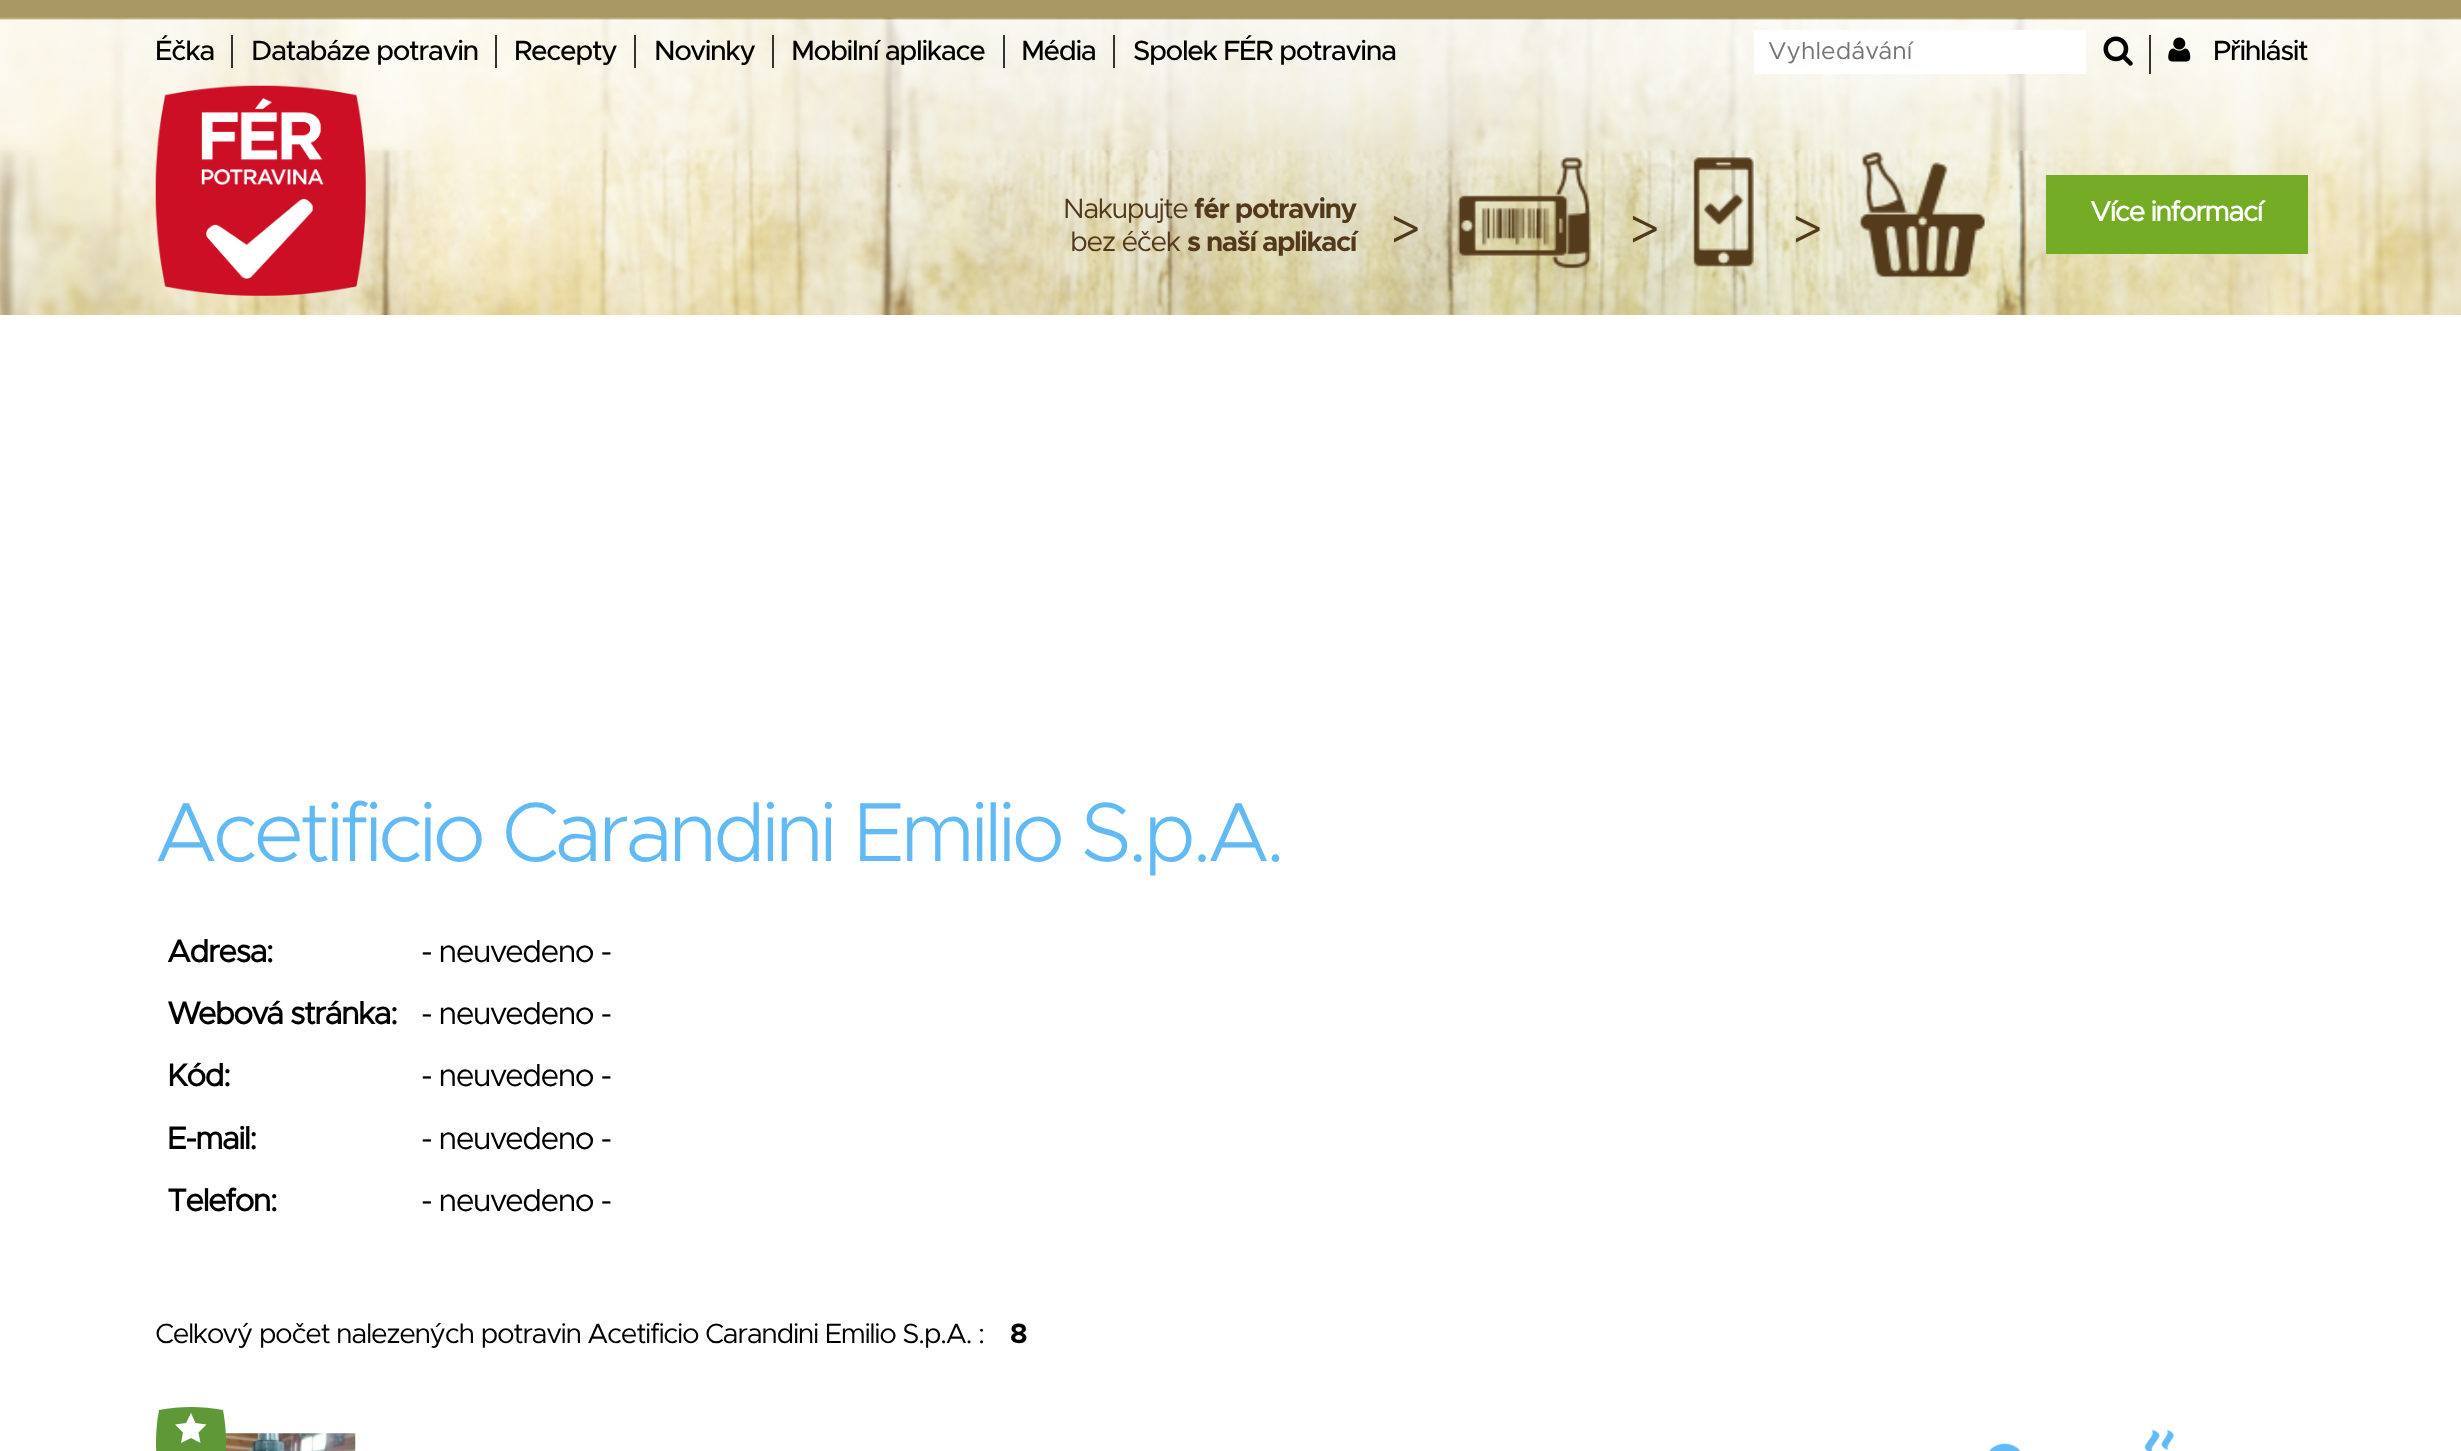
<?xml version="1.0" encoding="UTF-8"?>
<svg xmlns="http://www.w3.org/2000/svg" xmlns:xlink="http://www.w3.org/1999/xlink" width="2461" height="1451">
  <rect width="100%" height="100%" fill="#ffffff" />
  <rect width="2461" height="20" fill="#a79763" />
  <image x="0" y="17" width="2461" height="298" xlink:href="image1.png" />
  <rect x="231" y="35" width="2" height="33" fill="#333333" />
  <rect x="495" y="35" width="2" height="33" fill="#333333" />
  <rect x="634" y="35" width="2" height="33" fill="#333333" />
  <rect x="772" y="35" width="2" height="33" fill="#333333" />
  <rect x="1003" y="35" width="2" height="33" fill="#333333" />
  <rect x="1113" y="35" width="2" height="33" fill="#333333" />
  <rect x="2149" y="35" width="2" height="39" fill="#333333" />
  <rect x="1754" y="30" width="332" height="44" fill="#ffffff" />
  <image x="2103" y="36" width="30" height="30" xlink:href="image2.png" />
  <image x="2168" y="37" width="23" height="25" xlink:href="image3.png" />
  <image x="155" y="85" width="211" height="211" xlink:href="image4.png" />
  <image x="1457" y="157" width="135" height="112" xlink:href="image5.png" />
  <image x="1693" y="157" width="61" height="110" xlink:href="image6.png" />
  <image x="1858" y="152" width="127" height="126" xlink:href="image7.png" />
  <rect x="2046" y="175" width="262" height="79" fill="#74ac25" />
  <image x="225" y="1433" width="131" height="18" xlink:href="image8.png" />
  <path d="M 159 1410 c 21 -4 43 -4 64 0 c 4 21 4 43 0 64 c -21 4 -43 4 -64 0 c -4 -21 -4 -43 0 -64 z" fill="#5f9836" fill-rule="evenodd" />
  <path d="M 191 1438 l -10 5 l 2 -10.5 l -8 -8 l 11 -1.5 l 5 -10 l 4.5 10 l 11 1.5 l -8 8 l 2 10.5 z" fill="#ffffff" fill-rule="evenodd" />
  <image x="1989" y="1443" width="32" height="8" xlink:href="image9.png" />
  <image x="2144" y="1429" width="30" height="22" xlink:href="image10.png" />
  <text x="155" y="60" style="font-family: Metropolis; font-size: 28px; font-weight: 500; letter-spacing: -1.4px; fill: #000000">Éčka</text>
  <text x="251" y="60" style="font-family: Metropolis; font-size: 28px; font-weight: 500; letter-spacing: -1.4px; fill: #000000">Databáze potravin</text>
  <text x="514" y="60" style="font-family: Metropolis; font-size: 28px; font-weight: 500; letter-spacing: -1.4px; fill: #000000">Recepty</text>
  <text x="654" y="60" style="font-family: Metropolis; font-size: 28px; font-weight: 500; letter-spacing: -1.4px; fill: #000000">Novinky</text>
  <text x="791" y="60" style="font-family: Metropolis; font-size: 28px; font-weight: 500; letter-spacing: -1.4px; fill: #000000">Mobilní aplikace</text>
  <text x="1021" y="60" style="font-family: Metropolis; font-size: 28px; font-weight: 500; letter-spacing: -1.4px; fill: #000000">Média</text>
  <text x="1133" y="60" style="font-family: Metropolis; font-size: 28px; font-weight: 500; letter-spacing: -1.4px; fill: #000000">Spolek FÉR potravina</text>
  <text x="1768" y="59" style="font-family: Metropolis; font-size: 24.5px; fill: #757575">Vyhledávání</text>
  <text x="2213" y="60" style="font-family: Metropolis; font-size: 28px; font-weight: 500; letter-spacing: -1.4px; fill: #000000">Přihlásit</text>
  <text x="1063" y="218" style="font-family: Metropolis; font-size: 28px; letter-spacing: -1.4px; fill: #53391b">Nakupujte</text>
  <text x="1194" y="218" style="font-family: Metropolis; font-size: 28px; font-weight: bold; letter-spacing: -1.4px; fill: #53391b">fér potraviny</text>
  <text x="1070" y="251" style="font-family: Metropolis; font-size: 28px; letter-spacing: -1.4px; fill: #53391b">bez éček</text>
  <text x="1187" y="251" style="font-family: Metropolis; font-size: 28px; font-weight: bold; letter-spacing: -1.4px; fill: #53391b">s naší aplikací</text>
  <text x="2090" y="221" style="font-family: 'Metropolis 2'; font-size: 28px; font-weight: bold; letter-spacing: -1.4px; fill: #ffffff">Více informací</text>
  <text x="1390" y="247" style="font-family: Metropolis; font-size: 52px; letter-spacing: -3px; fill: #53391b">&gt;</text>
  <text x="1629" y="247" style="font-family: Metropolis; font-size: 52px; letter-spacing: -3px; fill: #53391b">&gt;</text>
  <text x="1792" y="247" style="font-family: Metropolis; font-size: 52px; letter-spacing: -3px; fill: #53391b">&gt;</text>
  <text x="155" y="861" style="font-family: Metropolis; font-size: 84px; font-weight: 300; letter-spacing: -4.2px; fill: #62baf4">Acetificio Carandini Emilio S.p.A.</text>
  <text x="167" y="962" style="font-family: 'Metropolis 2'; font-size: 31.5px; font-weight: bold; letter-spacing: -1.6px; fill: #000000">Adresa:</text>
  <text x="421" y="962" style="font-family: Metropolis; font-size: 31.5px; letter-spacing: -1.6px; fill: #000000">- neuvedeno -</text>
  <text x="167" y="1024" style="font-family: 'Metropolis 2'; font-size: 31.5px; font-weight: bold; letter-spacing: -1.6px; fill: #000000">Webová stránka:</text>
  <text x="421" y="1024" style="font-family: Metropolis; font-size: 31.5px; letter-spacing: -1.6px; fill: #000000">- neuvedeno -</text>
  <text x="167" y="1086" style="font-family: 'Metropolis 2'; font-size: 31.5px; font-weight: bold; letter-spacing: -1.6px; fill: #000000">Kód:</text>
  <text x="421" y="1086" style="font-family: Metropolis; font-size: 31.5px; letter-spacing: -1.6px; fill: #000000">- neuvedeno -</text>
  <text x="167" y="1149" style="font-family: 'Metropolis 2'; font-size: 31.5px; font-weight: bold; letter-spacing: -1.6px; fill: #000000">E-mail:</text>
  <text x="421" y="1149" style="font-family: Metropolis; font-size: 31.5px; letter-spacing: -1.6px; fill: #000000">- neuvedeno -</text>
  <text x="167" y="1211" style="font-family: 'Metropolis 2'; font-size: 31.5px; font-weight: bold; letter-spacing: -1.6px; fill: #000000">Telefon:</text>
  <text x="421" y="1211" style="font-family: Metropolis; font-size: 31.5px; letter-spacing: -1.6px; fill: #000000">- neuvedeno -</text>
  <text x="155" y="1343" style="font-family: Metropolis; font-size: 28px; letter-spacing: -1.4px; fill: #000000">Celkový počet nalezených potravin Acetificio Carandini Emilio S.p.A. :</text>
  <text x="1010" y="1343" style="font-family: Metropolis; font-size: 28px; font-weight: bold; letter-spacing: -1.4px; fill: #000000">8</text>
</svg>
